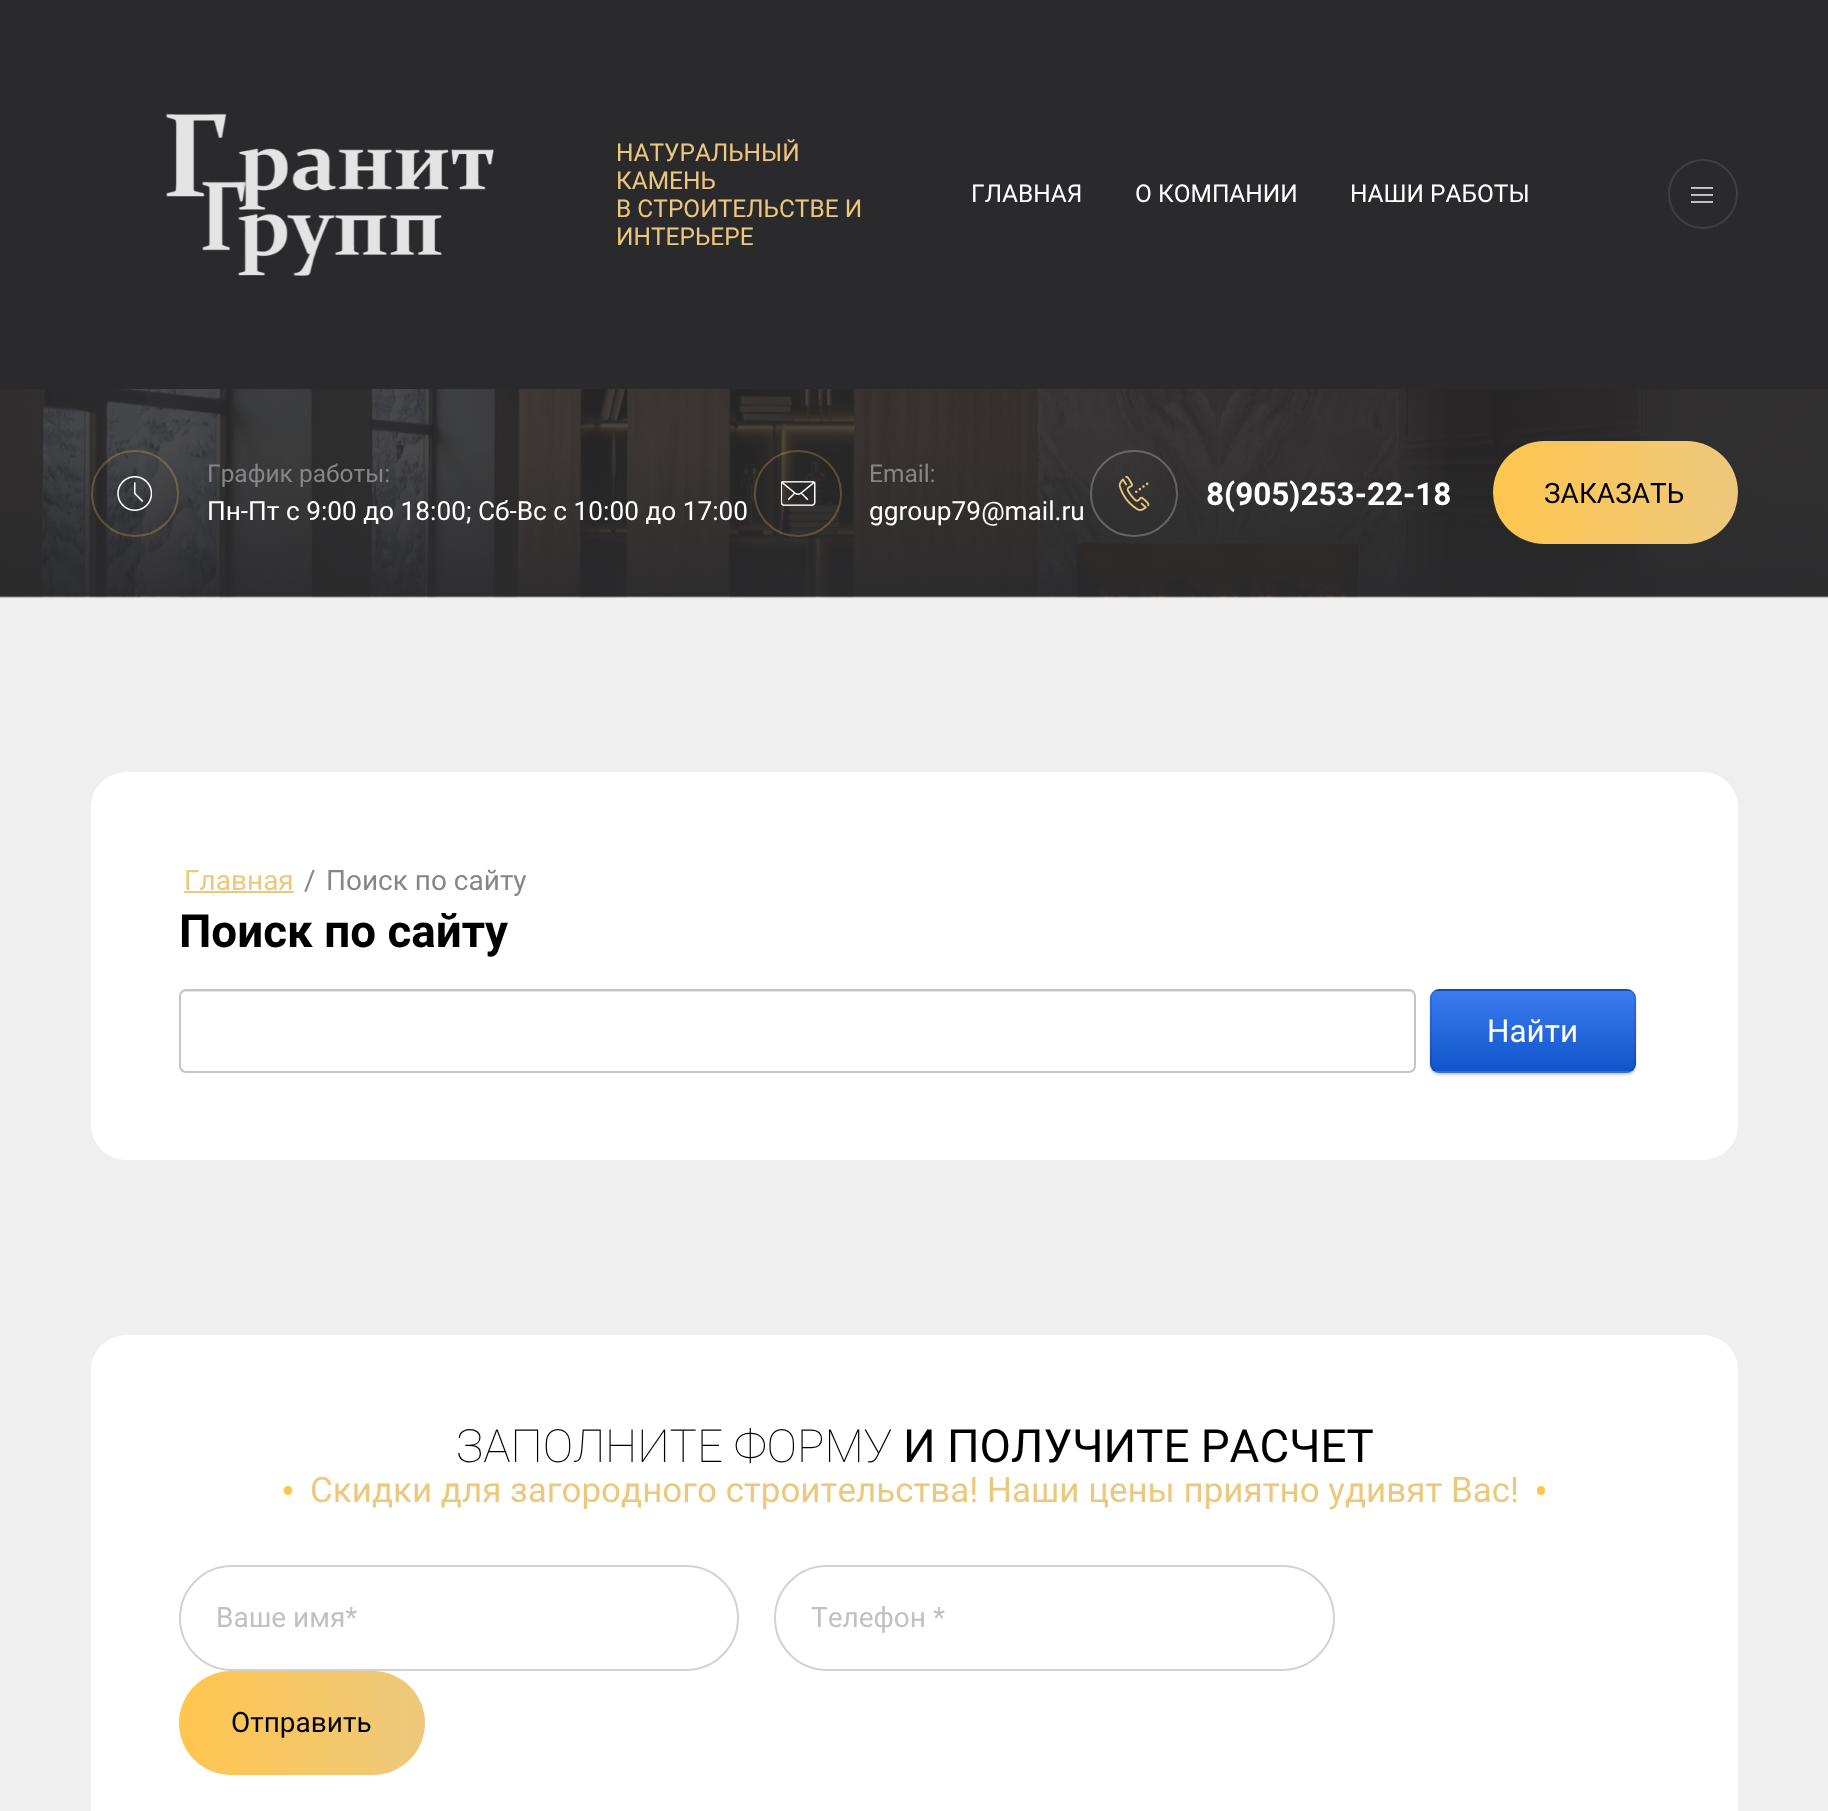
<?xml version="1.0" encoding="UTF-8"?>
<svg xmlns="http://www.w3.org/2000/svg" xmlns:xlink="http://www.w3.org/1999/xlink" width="1828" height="1811">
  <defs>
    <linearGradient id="g1" gradientUnits="userSpaceOnUse" x1="1738" y1="493" x2="1493" y2="493"><stop offset="0" stop-color="#edc87c" /><stop offset="1" stop-color="#ffc64f" /></linearGradient>
    <clipPath id="clip1"><rect x="1430" y="989" width="206" height="84" rx="9" /></clipPath>
    <linearGradient id="g2" gradientUnits="userSpaceOnUse" x1="1533" y1="910" x2="1533" y2="991"><stop offset="0" stop-color="#3b7cef" /><stop offset="1" stop-color="#1155cc" /></linearGradient>
    <linearGradient id="g3" gradientUnits="userSpaceOnUse" x1="1533" y1="991" x2="1533" y2="1071"><stop offset="0" stop-color="#3b7cef" /><stop offset="1" stop-color="#1155cc" /></linearGradient>
    <linearGradient id="g4" gradientUnits="userSpaceOnUse" x1="1533" y1="1071" x2="1533" y2="1152"><stop offset="0" stop-color="#3b7cef" /><stop offset="1" stop-color="#1155cc" /></linearGradient>
    <linearGradient id="g5" gradientUnits="userSpaceOnUse" x1="425" y1="1723" x2="179" y2="1723"><stop offset="0" stop-color="#edc87c" /><stop offset="1" stop-color="#ffc64f" /></linearGradient>
  </defs>
  <rect width="100%" height="100%" fill="#efefef" />
  <rect width="1828" height="389" fill="#2a2a2c" />
  <image x="166" y="113" width="328" height="163" xlink:href="image1.png" />
  <image x="1691" y="187" width="22" height="16" xlink:href="image2.png" />
  <circle cx="1703" cy="194" r="34" fill="none" stroke="#3f3f41" stroke-width="2" />
  <image x="0" y="389" width="1828" height="209" xlink:href="image3.png" />
  <rect x="92" y="451" width="86" height="85" rx="42.5" fill="none" stroke="#ffc64f" stroke-opacity="0.25" stroke-width="2" />
  <image x="117" y="476" width="35" height="35" xlink:href="image4.png" />
  <rect x="755" y="451" width="86" height="85" rx="42.5" fill="none" stroke="#ffc64f" stroke-opacity="0.25" stroke-width="2" />
  <image x="781" y="481" width="35" height="25" xlink:href="image5.png" />
  <rect x="1091" y="451" width="86" height="85" rx="42.5" fill="none" stroke="#ffffff" stroke-opacity="0.25" stroke-width="2" />
  <image x="1118" y="476" width="32" height="35" xlink:href="image6.png" />
  <rect x="1493" y="441" width="245" height="103" rx="51.5" fill="url(#g1)" />
  <rect x="91" y="772" width="1647" height="388" rx="35" fill="#ffffff" />
  <rect x="184" y="891" width="110" height="2" fill="#edc87c" />
  <path d="M 186 992 h 1223 c 3 0 5 3 5 6 v -2 c 0 -3 -2 -5 -5 -5 h -1224 c -3 0 -5 2 -5 5 v 2 c 0 -3 3 -6 6 -6 z" fill="#e6e6e6" />
  <rect x="180" y="990" width="1235" height="82" rx="6" fill="none" stroke="#c5c5c5" stroke-width="2" />
  <rect x="1430" y="991" width="206" height="84" rx="9" fill="#000000" fill-opacity="0.2" filter="blur(1px)" />
  <g clip-path="url(#clip1)">
    <rect x="1430" y="989" width="206" height="2" fill="url(#g2)" />
    <rect x="1430" y="991" width="206" height="80" fill="url(#g3)" />
    <rect x="1430" y="1071" width="206" height="2" fill="url(#g4)" />
  </g>
  <rect x="1431" y="990" width="204" height="82" rx="8" fill="none" stroke="#000000" stroke-opacity="0.1" stroke-width="2" />
  <rect x="91" y="1335" width="1647" height="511" rx="35" fill="#ffffff" />
  <rect x="284" y="1486" width="8" height="9" rx="4" fill="#ffc64f" />
  <rect x="1537" y="1486" width="8" height="9" rx="4" fill="#ffc64f" />
  <rect x="180" y="1566" width="558" height="104" rx="52" fill="none" stroke="#d2d2d2" stroke-width="2" />
  <rect x="775" y="1566" width="559" height="104" rx="52" fill="none" stroke="#d2d2d2" stroke-width="2" />
  <rect x="179" y="1671" width="246" height="104" rx="52" fill="url(#g5)" />
  <text x="616" y="161" style="font-family: Roboto; font-size: 24.5px; fill: #edc87c">НАТУРАЛЬНЫЙ</text>
  <text x="616" y="189" style="font-family: Roboto; font-size: 24.5px; fill: #edc87c">КАМЕНЬ</text>
  <text x="616" y="217" style="font-family: Roboto; font-size: 24.5px; fill: #edc87c">В СТРОИТЕЛЬСТВЕ И</text>
  <text x="616" y="245" style="font-family: Roboto; font-size: 24.5px; fill: #edc87c">ИНТЕРЬЕРЕ</text>
  <text x="971" y="202" style="font-family: Roboto; font-size: 24.5px; fill: #ffffff">ГЛАВНАЯ</text>
  <text x="1135" y="202" style="font-family: Roboto; font-size: 24.5px; fill: #ffffff">О КОМПАНИИ</text>
  <text x="1350" y="202" style="font-family: Roboto; font-size: 24.5px; fill: #ffffff">НАШИ РАБОТЫ</text>
  <text x="207" y="482" style="font-family: Roboto; font-size: 24.5px; fill: #868686">График работы:</text>
  <text x="207" y="520" style="font-family: Roboto; font-size: 26.25px; fill: #ffffff">Пн-Пт с 9:00 до 18:00; Сб-Вс с 10:00 до 17:00</text>
  <text x="869" y="482" style="font-family: Roboto; font-size: 24.5px; fill: #868686">Email:</text>
  <text x="869" y="520" style="font-family: Roboto; font-size: 26.25px; fill: #ffffff">ggroup79@mail.ru</text>
  <text x="1206" y="505" style="font-family: Roboto; font-size: 31.5px; font-weight: bold; fill: #ffffff">8(905)253-22-18</text>
  <text x="1544" y="503" style="font-family: Roboto; font-size: 28px; fill: #000000">ЗАКАЗАТЬ</text>
  <text x="184" y="890" style="font-family: Roboto; font-size: 28px; fill: #edc87c">Главная</text>
  <text x="304" y="890" style="font-family: Roboto; font-size: 28px; fill: #868686">/</text>
  <text x="326" y="890" style="font-family: Roboto; font-size: 28px; fill: #868686">Поиск по сайту</text>
  <text x="179" y="947" style="font-family: Roboto; font-size: 45.75px; font-weight: bold; fill: #000000">Поиск по сайту</text>
  <text x="1487" y="1042" style="font-family: Roboto; font-size: 31.5px; fill: #ffffff">Найти</text>
  <text x="456" y="1462" style="font-family: Roboto; font-size: 45.75px; font-weight: 200; fill: #000000">ЗАПОЛНИТЕ ФОРМУ</text>
  <text x="903" y="1462" style="font-family: Roboto; font-size: 45.75px; fill: #000000">И ПОЛУЧИТЕ РАСЧЕТ</text>
  <text x="310" y="1502" style="font-family: Roboto; font-size: 35px; fill: #edc87c">Скидки для загородного строительства! Наши цены приятно удивят Вас!</text>
  <text x="216" y="1627" style="font-family: Roboto; font-size: 28px; fill: #c1c1c1">Ваше имя*</text>
  <text x="811" y="1627" style="font-family: Roboto; font-size: 28px; fill: #c1c1c1">Телефон *</text>
  <text x="231" y="1732" style="font-family: Roboto; font-size: 28px; fill: #000000">Отправить</text>
</svg>
